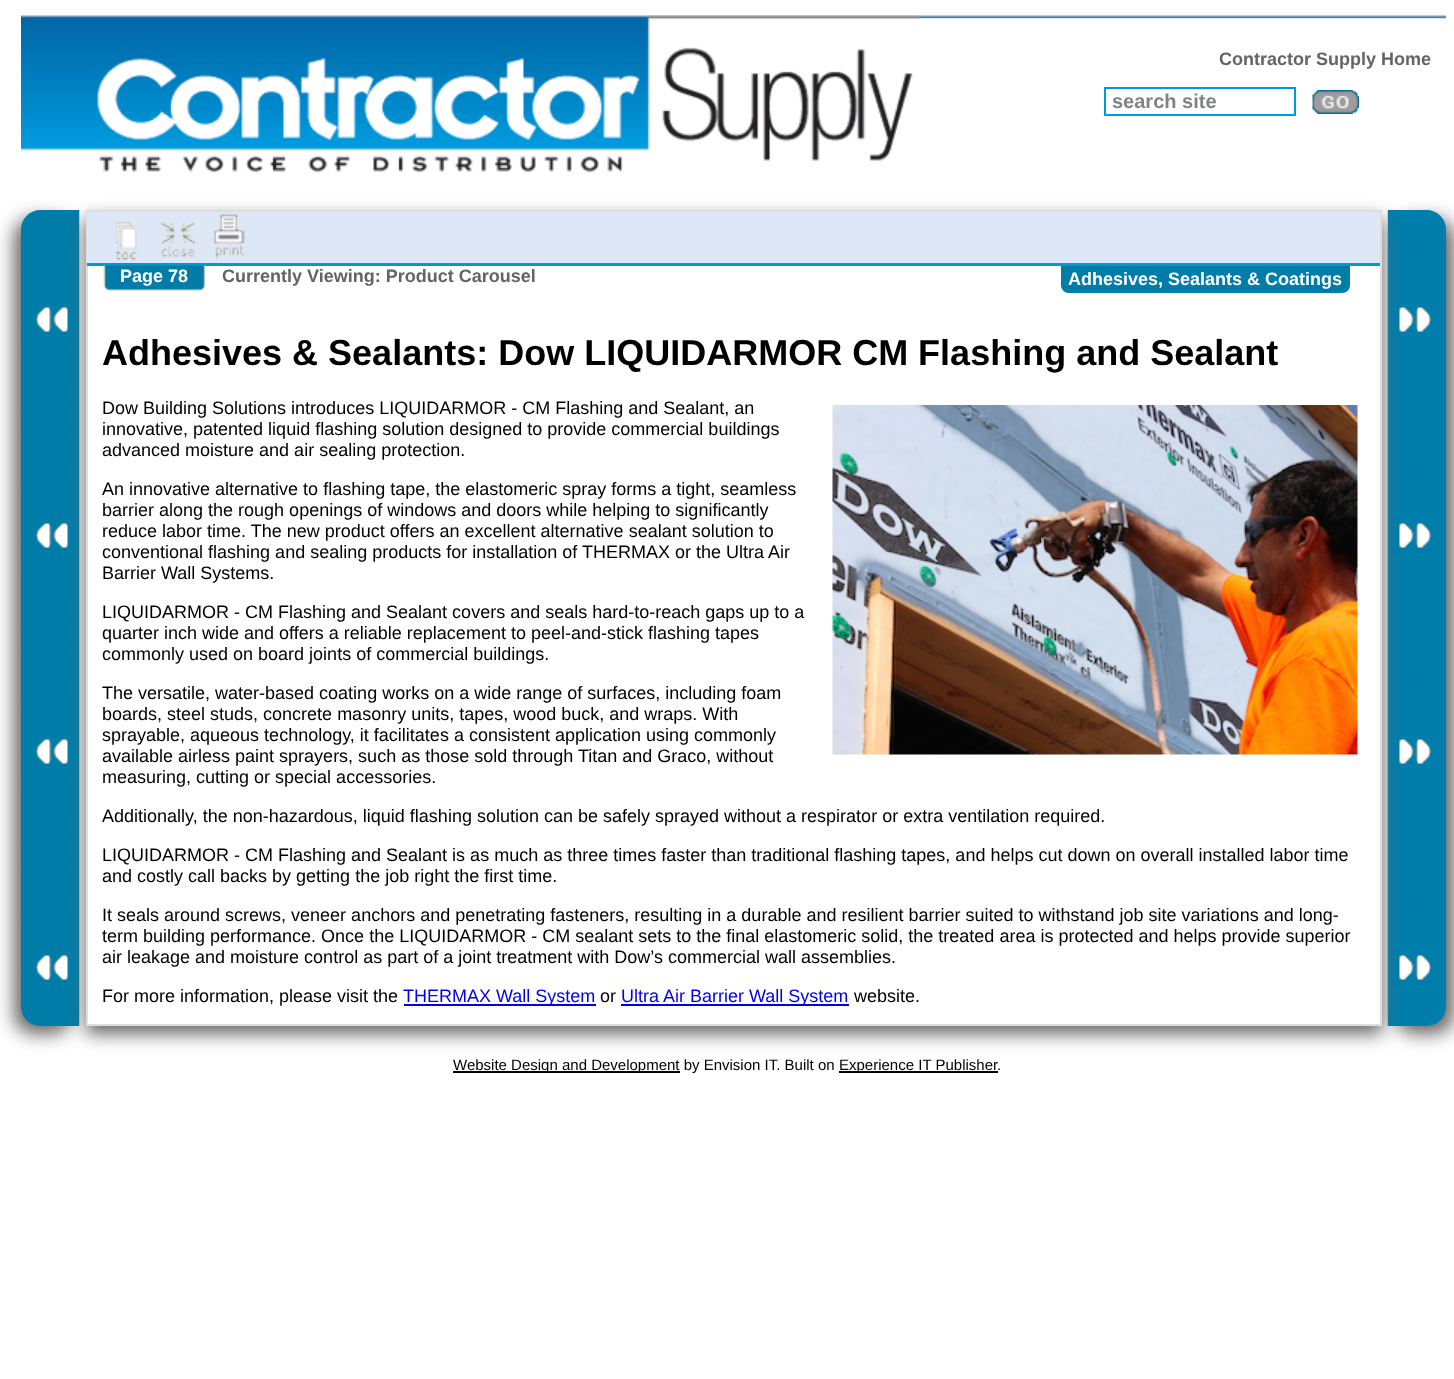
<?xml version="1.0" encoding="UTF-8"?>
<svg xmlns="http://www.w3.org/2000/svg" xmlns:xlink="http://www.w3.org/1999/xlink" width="1454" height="1379">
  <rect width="100%" height="100%" fill="#ffffff" />
  <image x="919" y="15" width="527" height="4" xlink:href="image1.png" />
  <image x="21" y="15" width="899" height="158" xlink:href="image2.png" />
  <rect x="1105" y="88" width="190" height="27" fill="none" stroke="#0099dc" stroke-width="2" />
  <image x="1312" y="90" width="47" height="24" xlink:href="image3.png" />
  <rect x="14" y="218" width="58" height="816" rx="20" fill="#666666" filter="blur(9px)" />
  <image x="21" y="210" width="59" height="816" xlink:href="image4.png" />
  <rect x="1395" y="218" width="59" height="816" rx="20" fill="#666666" filter="blur(9px)" />
  <image x="1387" y="210" width="59" height="816" xlink:href="image10.png" />
  <rect x="86" y="218" width="1296" height="816" fill="#666666" filter="blur(9px)" />
  <rect x="88" y="266" width="1292" height="758" fill="#ffffff" />
  <rect x="87" y="211" width="1294" height="814" fill="none" stroke="#dddddd" stroke-width="2" />
  <rect x="87" y="212" width="1293" height="51" fill="#dee7f5" />
  <rect x="87" y="263" width="1293" height="3" fill="#0099cc" />
  <image x="115" y="222" width="22" height="38" xlink:href="image5.png" />
  <image x="160" y="222" width="35" height="35" xlink:href="image6.png" />
  <image x="214" y="214" width="31" height="45" xlink:href="image7.png" />
  <image x="103" y="265" width="103" height="26" xlink:href="image8.png" />
  <path d="M 1061 266 h 289 v 19 c 0 4.5 -3.5 8 -8 8 h -273 c -4.5 0 -8 -3.5 -8 -8 z" fill="#007ca8" />
  <image x="832" y="405" width="526" height="350" xlink:href="image9.png" />
  <rect x="404" y="1004" width="192" height="2" fill="#0000ee" />
  <rect x="621" y="1004" width="228" height="2" fill="#0000ee" />
  <rect x="453" y="1071" width="227" height="2" fill="#000000" />
  <rect x="839" y="1071" width="159" height="2" fill="#000000" />
  <text x="1219" y="65" style="font-family: Liberation Sans; font-size: 18px; font-weight: bold; fill: #636467">Contractor Supply Home</text>
  <text x="1112" y="108" style="font-family: Liberation Sans; font-size: 20px; font-weight: bold; fill: #808285">search site</text>
  <text x="120" y="282" style="font-family: Liberation Sans; font-size: 18px; font-weight: bold; fill: #ffffff">Page 78</text>
  <text x="222" y="282" style="font-family: Liberation Sans; font-size: 18px; font-weight: bold; fill: #636467">Currently Viewing: Product Carousel</text>
  <text x="1068" y="285" style="font-family: Liberation Sans; font-size: 18px; font-weight: bold; fill: #ffffff">Adhesives, Sealants &amp; Coatings</text>
  <text x="102" y="365" style="font-family: Liberation Sans; font-size: 36px; font-weight: bold; fill: #000000">Adhesives &amp; Sealants: Dow LIQUIDARMOR CM Flashing and Sealant</text>
  <text x="102" y="414" style="font-family: Liberation Sans; font-size: 18px; fill: #000000">Dow Building Solutions introduces LIQUIDARMOR - CM Flashing and Sealant, an</text>
  <text x="102" y="435" style="font-family: Liberation Sans; font-size: 18px; fill: #000000">innovative, patented liquid flashing solution designed to provide commercial buildings</text>
  <text x="102" y="456" style="font-family: Liberation Sans; font-size: 18px; fill: #000000">advanced moisture and air sealing protection.</text>
  <text x="102" y="495" style="font-family: Liberation Sans; font-size: 18px; fill: #000000">An innovative alternative to flashing tape, the elastomeric spray forms a tight, seamless</text>
  <text x="102" y="516" style="font-family: Liberation Sans; font-size: 18px; fill: #000000">barrier along the rough openings of windows and doors while helping to significantly</text>
  <text x="102" y="537" style="font-family: Liberation Sans; font-size: 18px; fill: #000000">reduce labor time. The new product offers an excellent alternative sealant solution to</text>
  <text x="102" y="558" style="font-family: Liberation Sans; font-size: 18px; fill: #000000">conventional flashing and sealing products for installation of THERMAX or the Ultra Air</text>
  <text x="102" y="579" style="font-family: Liberation Sans; font-size: 18px; fill: #000000">Barrier Wall Systems.</text>
  <text x="102" y="618" style="font-family: Liberation Sans; font-size: 18px; fill: #000000">LIQUIDARMOR - CM Flashing and Sealant covers and seals hard-to-reach gaps up to a</text>
  <text x="102" y="639" style="font-family: Liberation Sans; font-size: 18px; fill: #000000">quarter inch wide and offers a reliable replacement to peel-and-stick flashing tapes</text>
  <text x="102" y="660" style="font-family: Liberation Sans; font-size: 18px; fill: #000000">commonly used on board joints of commercial buildings.</text>
  <text x="102" y="699" style="font-family: Liberation Sans; font-size: 18px; fill: #000000">The versatile, water-based coating works on a wide range of surfaces, including foam</text>
  <text x="102" y="720" style="font-family: Liberation Sans; font-size: 18px; fill: #000000">boards, steel studs, concrete masonry units, tapes, wood buck, and wraps. With</text>
  <text x="102" y="741" style="font-family: Liberation Sans; font-size: 18px; fill: #000000">sprayable, aqueous technology, it facilitates a consistent application using commonly</text>
  <text x="102" y="762" style="font-family: Liberation Sans; font-size: 18px; fill: #000000">available airless paint sprayers, such as those sold through Titan and Graco, without</text>
  <text x="102" y="783" style="font-family: Liberation Sans; font-size: 18px; fill: #000000">measuring, cutting or special accessories.</text>
  <text x="102" y="822" style="font-family: Liberation Sans; font-size: 18px; fill: #000000">Additionally, the non-hazardous, liquid flashing solution can be safely sprayed without a respirator or extra ventilation required.</text>
  <text x="102" y="861" style="font-family: Liberation Sans; font-size: 18px; fill: #000000">LIQUIDARMOR - CM Flashing and Sealant is as much as three times faster than traditional flashing tapes, and helps cut down on overall installed labor time</text>
  <text x="102" y="882" style="font-family: Liberation Sans; font-size: 18px; fill: #000000">and costly call backs by getting the job right the first time.</text>
  <text x="102" y="921" style="font-family: Liberation Sans; font-size: 18px; fill: #000000">It seals around screws, veneer anchors and penetrating fasteners, resulting in a durable and resilient barrier suited to withstand job site variations and long-</text>
  <text x="102" y="942" style="font-family: Liberation Sans; font-size: 18px; fill: #000000">term building performance. Once the LIQUIDARMOR - CM sealant sets to the final elastomeric solid, the treated area is protected and helps provide superior</text>
  <text x="102" y="963" style="font-family: Liberation Sans; font-size: 18px; fill: #000000">air leakage and moisture control as part of a joint treatment with Dow’s commercial wall assemblies.</text>
  <text x="102" y="1002" style="font-family: Liberation Sans; font-size: 18px; fill: #000000">For more information, please visit the</text>
  <text x="403" y="1002" style="font-family: Liberation Sans; font-size: 18px; fill: #0000ee">THERMAX Wall System</text>
  <text x="600" y="1002" style="font-family: Liberation Sans; font-size: 18px; fill: #000000">or</text>
  <text x="621" y="1002" style="font-family: Liberation Sans; font-size: 18px; fill: #0000ee">Ultra Air Barrier Wall System</text>
  <text x="854" y="1002" style="font-family: Liberation Sans; font-size: 18px; fill: #000000">website.</text>
  <text x="453" y="1070" style="font-family: Liberation Sans; font-size: 15px; fill: #000000">Website Design and Development by Envision IT. Built on</text>
  <text x="839" y="1070" style="font-family: Liberation Sans; font-size: 15px; fill: #000000">Experience IT Publisher</text>
  <text x="997" y="1070" style="font-family: Liberation Sans; font-size: 15px; fill: #000000">.</text>
</svg>
